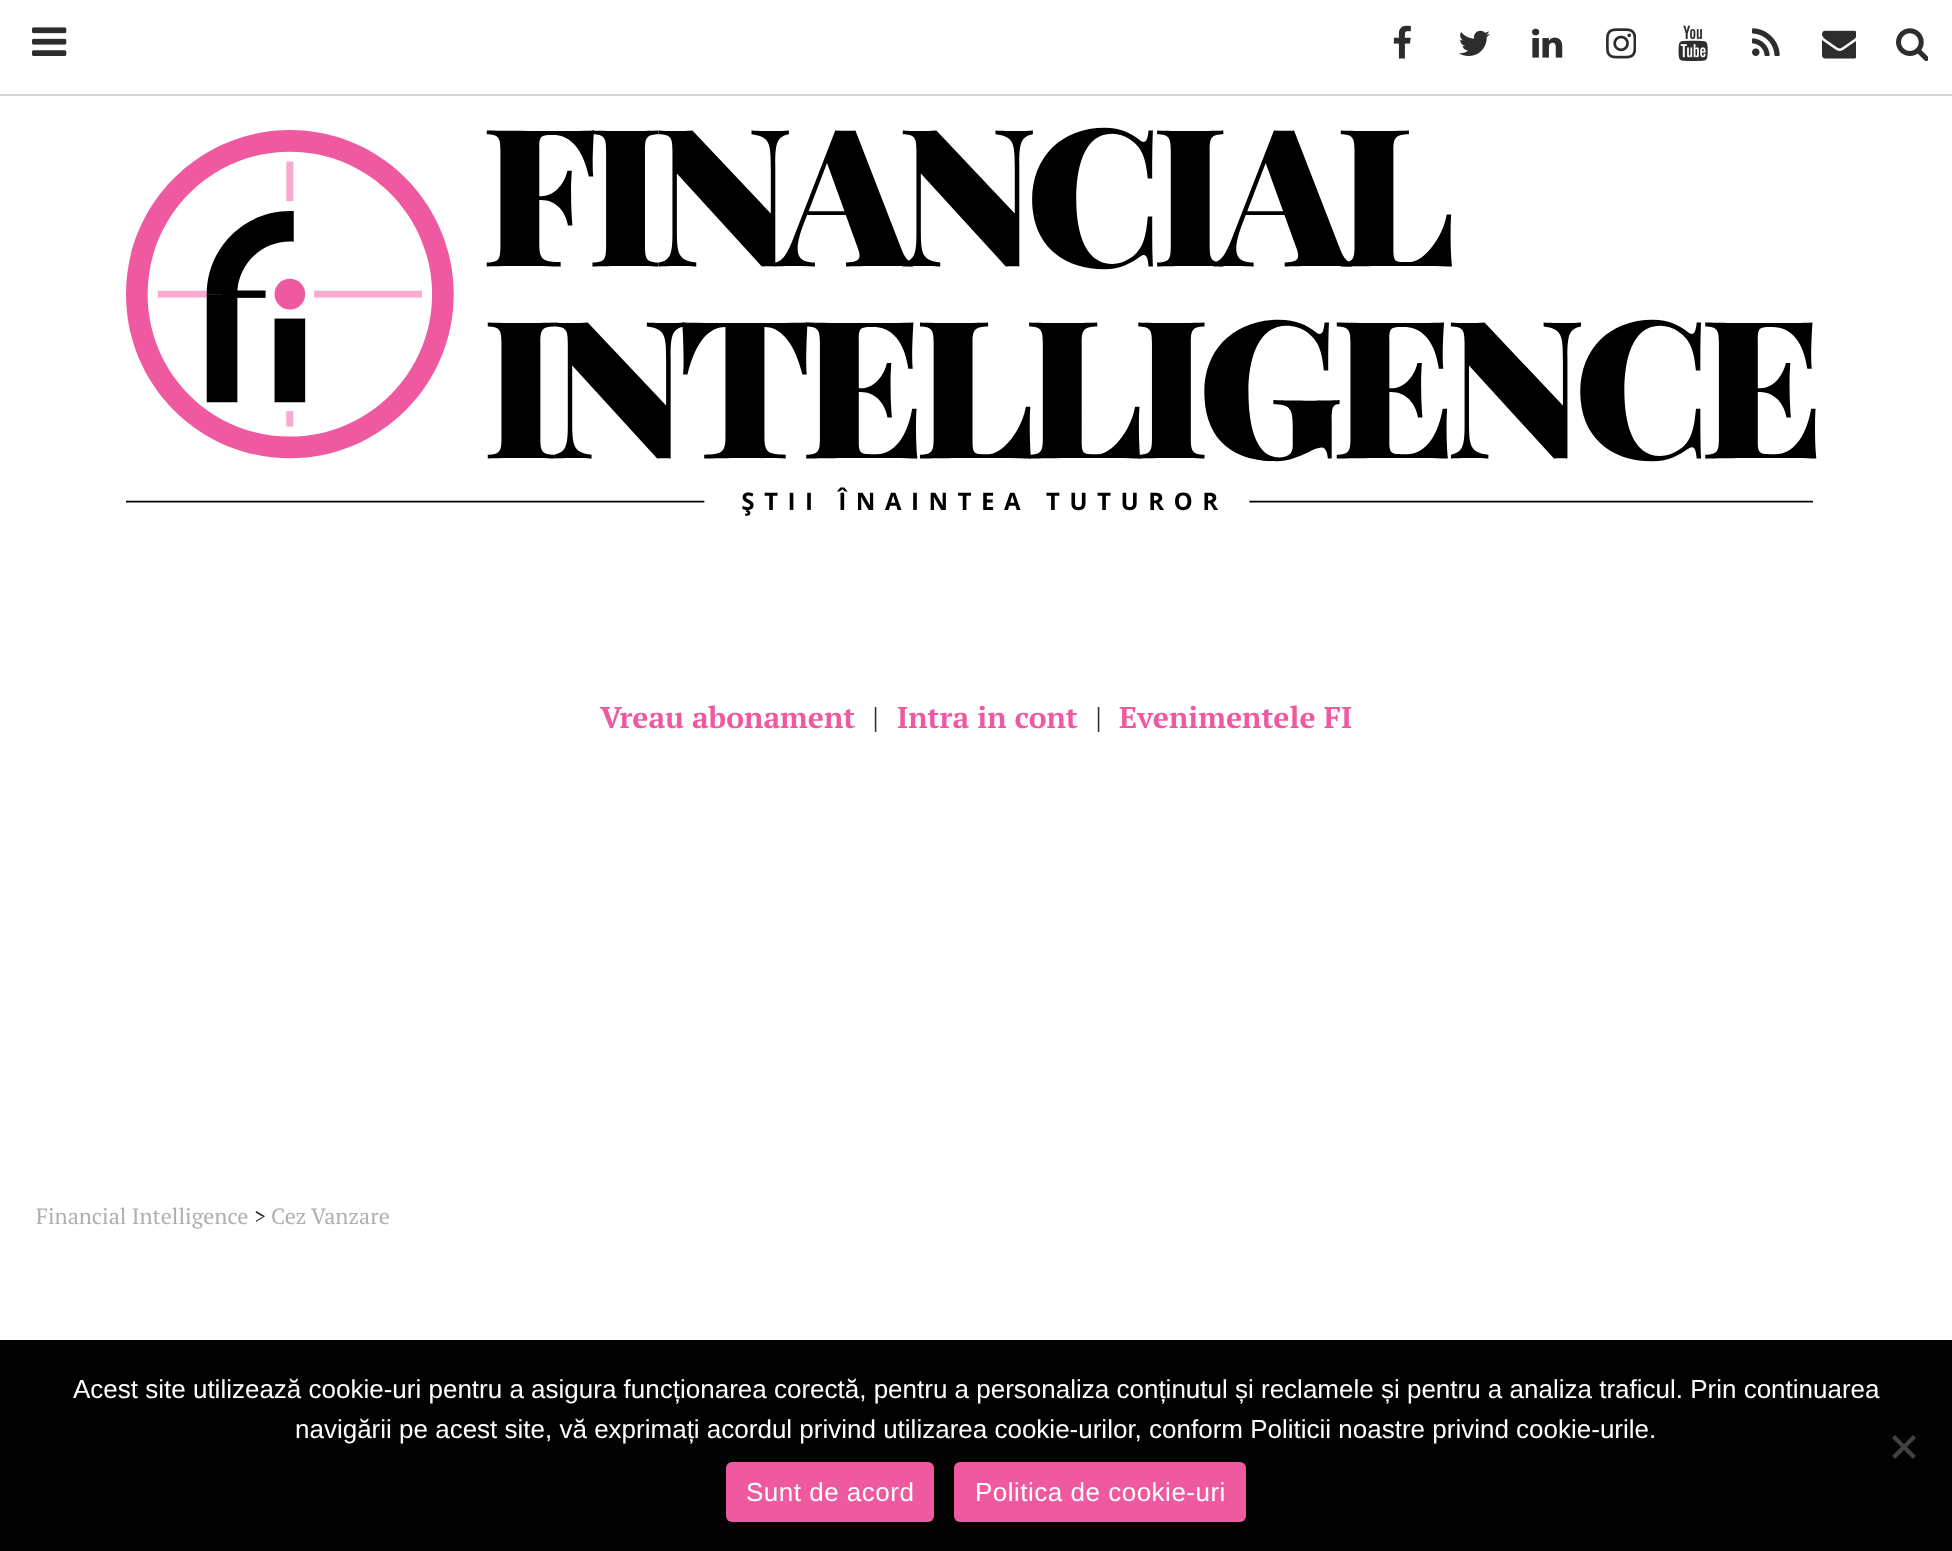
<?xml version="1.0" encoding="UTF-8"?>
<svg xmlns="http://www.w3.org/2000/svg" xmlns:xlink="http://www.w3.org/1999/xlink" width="1952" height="1551">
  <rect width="100%" height="100%" fill="#ffffff" />
  <image x="1393" y="25" width="18" height="34" xlink:href="image1.png" />
  <image x="1459" y="30" width="31" height="26" xlink:href="image2.png" />
  <image x="1532" y="28" width="31" height="30" xlink:href="image3.png" />
  <image x="1606" y="28" width="30" height="31" xlink:href="image4.png" />
  <image x="1678" y="25" width="30" height="37" xlink:href="image5.png" />
  <image x="1752" y="28" width="28" height="28" xlink:href="image6.png" />
  <image x="1822" y="30" width="34" height="29" xlink:href="image7.png" />
  <image x="1896" y="28" width="32" height="33" xlink:href="image8.png" />
  <rect y="94" width="1952" height="2" fill="#d5d5d5" />
  <image x="32" y="27" width="35" height="29" xlink:href="image9.png" />
  <image x="126" y="127" width="1691" height="389" xlink:href="image10.png" />
  <rect y="1340" width="1952" height="211" fill="#020202" />
  <path d="M 1913 1435 l 3 3 l -21 21 l -3 -3 z" fill="#414141" />
  <path d="M 1892 1438 l 3 -3 l 21 21 l -3 3 z" fill="#414141" />
  <rect x="726" y="1462" width="208" height="60" rx="6" fill="#ef59a0" />
  <rect x="954" y="1462" width="292" height="60" rx="6" fill="#ef59a0" />
  <text x="600" y="728" style="font-family: PT Serif; font-size: 30px; font-weight: bold; fill: #ef59a0">Vreau abonament</text>
  <text x="872" y="728" style="font-family: PT Serif; font-size: 30px; fill: #2e2c2c">|</text>
  <text x="897" y="728" style="font-family: PT Serif; font-size: 30px; font-weight: bold; fill: #ef59a0">Intra in cont</text>
  <text x="1095" y="728" style="font-family: PT Serif; font-size: 30px; fill: #2e2c2c">|</text>
  <text x="1119" y="728" style="font-family: PT Serif; font-size: 30px; font-weight: bold; fill: #ef59a0">Evenimentele FI</text>
  <text x="36" y="1224" style="font-family: PT Serif; font-size: 22px; fill: #afafaf">Financial Intelligence</text>
  <text x="254" y="1224" style="font-family: PT Serif; font-size: 22px; fill: #2e2c2c">&gt;</text>
  <text x="271" y="1224" style="font-family: PT Serif; font-size: 22px; fill: #afafaf">Cez Vanzare</text>
  <text x="73" y="1398" style="font-family: Liberation Sans; font-size: 26px; fill: #ffffff">Acest site utilizează cookie-uri pentru a asigura funcționarea corectă, pentru a personaliza conținutul și reclamele și pentru a analiza traficul. Prin continuarea</text>
  <text x="295" y="1438" style="font-family: Liberation Sans; font-size: 26px; fill: #ffffff">navigării pe acest site, vă exprimați acordul privind utilizarea cookie-urilor, conform Politicii noastre privind cookie-urile.</text>
  <text x="746" y="1501" style="font-family: Liberation Sans; font-size: 26px; letter-spacing: 0.5px; fill: #ffffff">Sunt de acord</text>
  <text x="975" y="1501" style="font-family: Liberation Sans; font-size: 26px; letter-spacing: 0.5px; fill: #ffffff">Politica de cookie-uri</text>
</svg>
